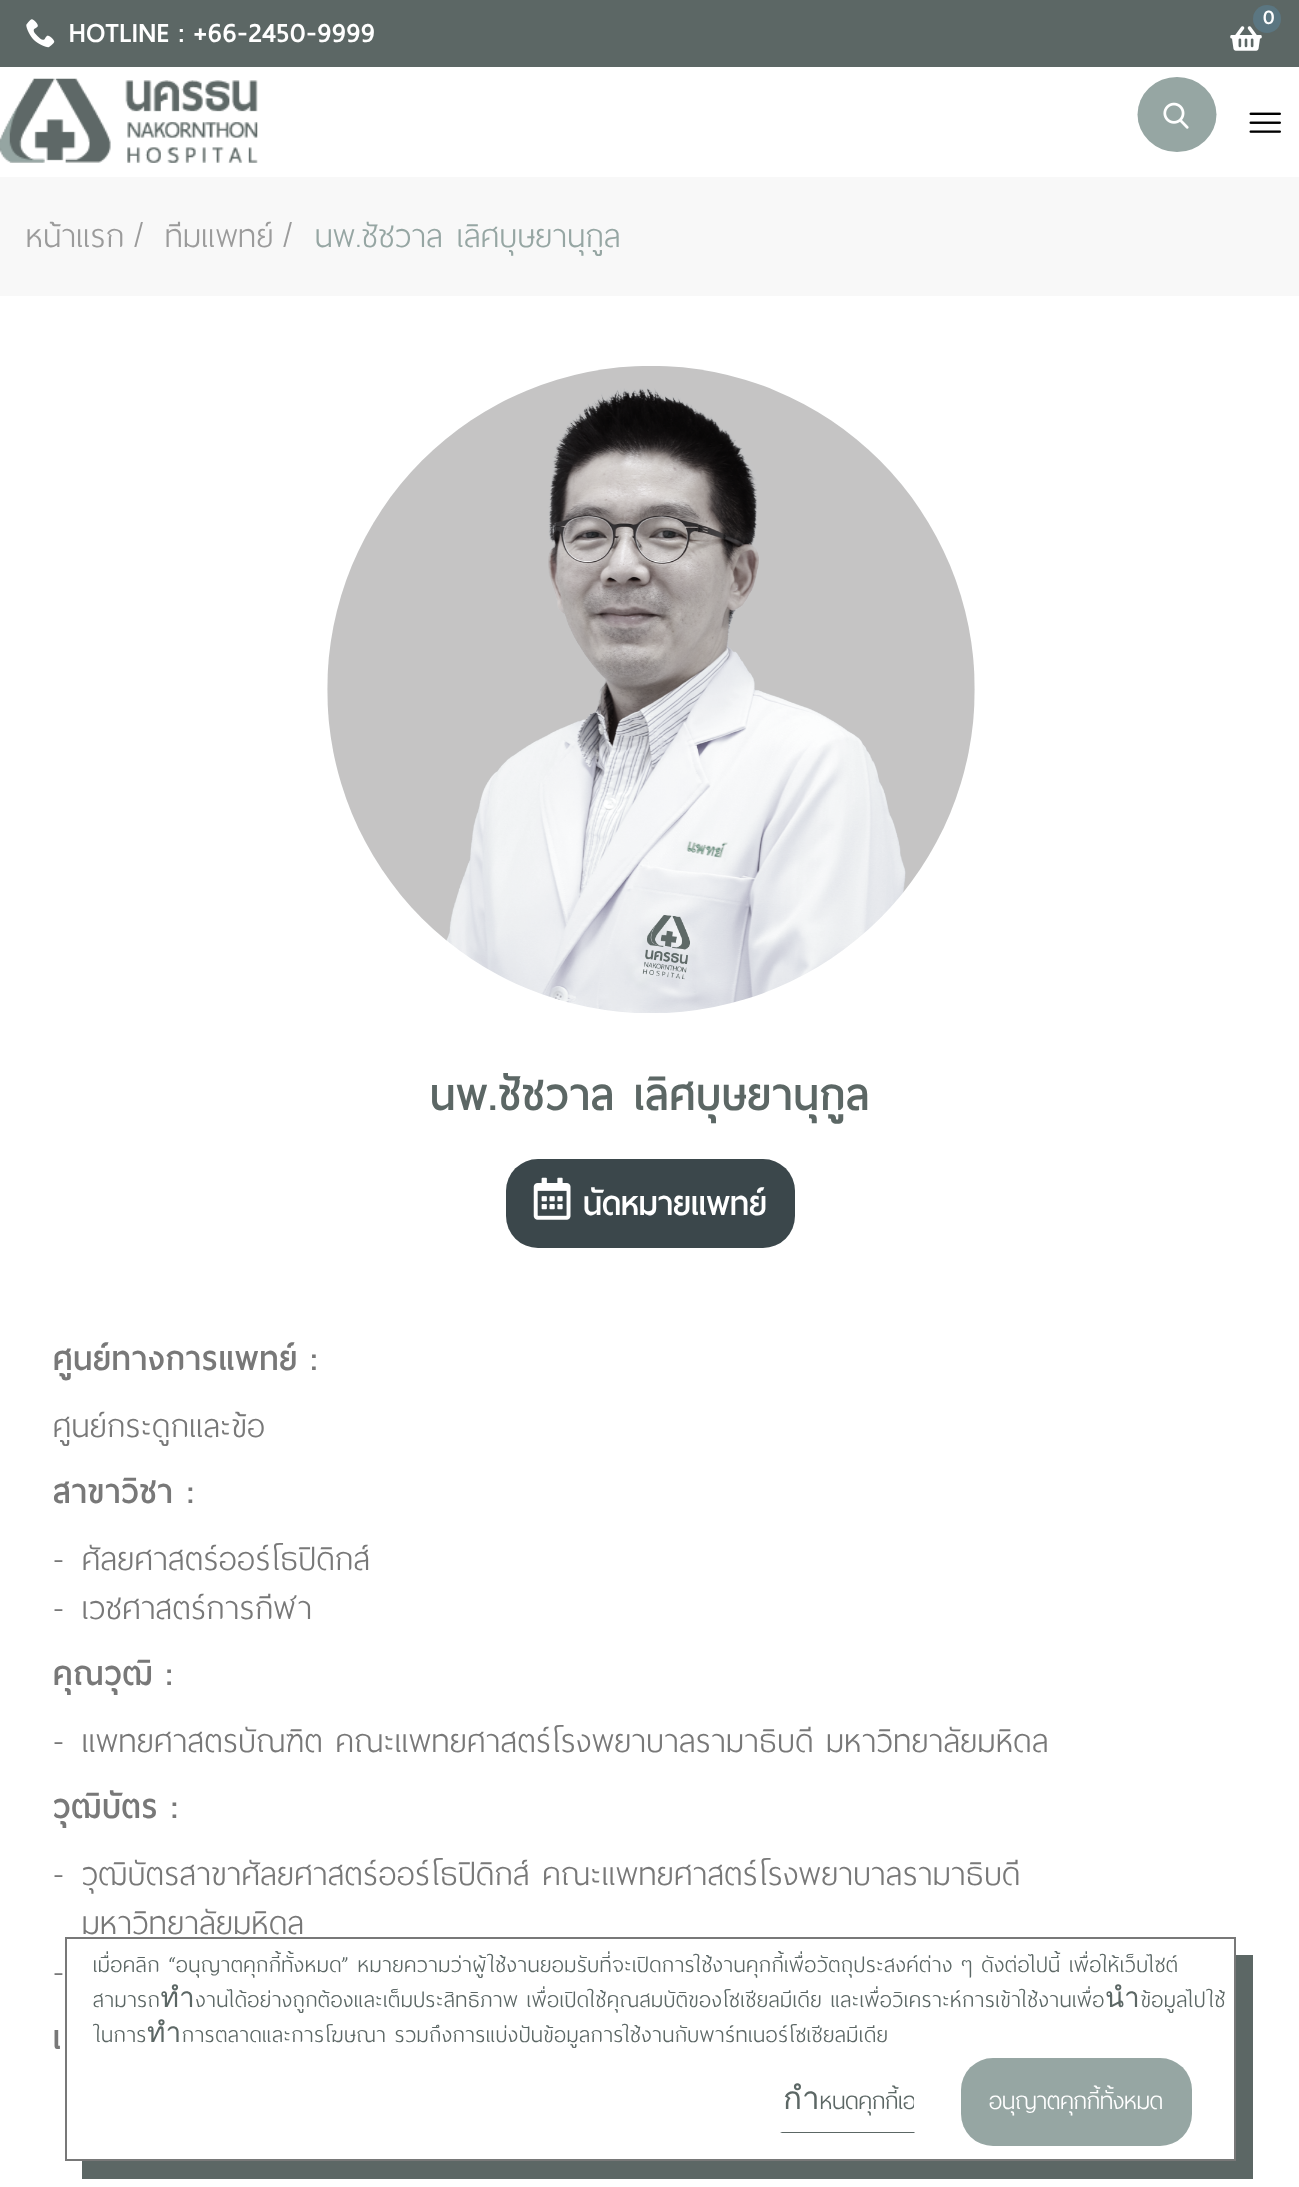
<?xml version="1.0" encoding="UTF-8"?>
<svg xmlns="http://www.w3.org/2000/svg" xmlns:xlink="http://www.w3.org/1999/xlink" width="1299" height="2187">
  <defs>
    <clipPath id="clip1"><path d="M 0 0 h 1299 v 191 h -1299 z m 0 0 h 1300 v 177 h -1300 z" clip-rule="evenodd" /></clipPath>
    <clipPath id="clip2"><rect x="782" y="2074" width="132" height="58" /></clipPath>
  </defs>
  <rect width="100%" height="100%" fill="#ffffff" />
  <g clip-path="url(#clip1)">
    <rect y="5" width="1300" height="177" fill="#000000" fill-opacity="0.1" filter="blur(2.5px)" />
  </g>
  <rect width="1299" height="67" fill="#5c6765" />
  <image x="1230" y="26" width="32" height="25" xlink:href="image1.png" />
  <circle cx="1267" cy="19" r="14" fill="#5b7681" />
  <image x="26" y="19" width="29" height="29" xlink:href="image2.png" />
  <image x="0" y="78" width="258" height="85" xlink:href="image3.png" />
  <ellipse cx="1177" cy="114.5" rx="39.5" ry="37.5" fill="#96a6a3" />
  <image x="1163" y="102" width="26" height="27" xlink:href="image4.png" />
  <image x="1249" y="112" width="32" height="21" xlink:href="image5.png" />
  <rect y="177" width="1299" height="119" fill="#f8f8f8" />
  <image x="327" y="366" width="648" height="647" xlink:href="image6.png" />
  <rect x="506" y="1159" width="289" height="89" rx="32" fill="#3b474b" />
  <image x="533" y="1177" width="38" height="43" xlink:href="image7.png" />
  <path d="M 82 2161 v 18 h 1171 v -224 h -17 v 206 z" fill="#5c6765" />
  <rect x="66" y="1938" width="1169" height="222" fill="none" stroke="#787878" stroke-width="2" />
  <path d="M 915 2133 h -135 l 2 -1 h 132 z" fill="#5c6765" />
  <rect x="961" y="2058" width="231" height="88" rx="32" fill="#96a6a3" />
  <text x="1263" y="24" style="font-family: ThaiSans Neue; font-size: 26px; font-weight: bold; letter-spacing: 0.88px; fill: #ffffff">0</text>
  <text x="69" y="42" word-spacing="-4" style="font-family: ThaiSans Neue; font-size: 35px; font-weight: bold; letter-spacing: 0.88px; fill: #ffffff">HOTLINE : +66-2450-9999</text>
  <text x="26" y="247" style="font-family: ThaiSans Neue; font-size: 42px; font-weight: 300; letter-spacing: 0.88px; fill: #9b9b9b">หน้าแรก</text>
  <text x="134" y="247" style="font-family: ThaiSans Neue; font-size: 42px; font-weight: 300; letter-spacing: 0.88px; fill: #9b9b9b">/</text>
  <text x="165" y="247" style="font-family: ThaiSans Neue; font-size: 42px; font-weight: 300; letter-spacing: 0.88px; fill: #9b9b9b">ทีมแพทย์</text>
  <text x="283" y="247" style="font-family: ThaiSans Neue; font-size: 42px; font-weight: 300; letter-spacing: 0.88px; fill: #9b9b9b">/</text>
  <text x="315" y="247" style="font-family: ThaiSans Neue; font-size: 42px; font-weight: 300; letter-spacing: 0.88px; fill: #96a6a3">นพ.ชัชวาล</text>
  <text x="457" y="247" style="font-family: ThaiSans Neue; font-size: 42px; font-weight: 300; letter-spacing: 0.88px; fill: #96a6a3">เลิศบุษยานุกูล</text>
  <text x="430" y="1110" style="font-family: ThaiSans Neue; font-size: 56px; font-weight: bold; letter-spacing: 0.88px; fill: #5c6765">นพ.ชัชวาล</text>
  <text x="634" y="1110" style="font-family: ThaiSans Neue; font-size: 56px; font-weight: bold; letter-spacing: 0.88px; fill: #5c6765">เลิศบุษยานุกูล</text>
  <text x="583" y="1215" style="font-family: ThaiSans Neue; font-size: 42px; font-weight: bold; fill: #ffffff">นัดหมายแพทย์</text>
  <text x="53" y="1370" word-spacing="-2" style="font-family: ThaiSans Neue; font-size: 42px; font-weight: bold; letter-spacing: 0.88px; fill: #787878">ศูนย์ทางการแพทย์ :</text>
  <text x="53" y="1437" style="font-family: ThaiSans Neue; font-size: 42px; font-weight: 300; letter-spacing: 0.88px; fill: #787878">ศูนย์กระดูกและข้อ</text>
  <text x="53" y="1503" word-spacing="-1" style="font-family: ThaiSans Neue; font-size: 42px; font-weight: bold; letter-spacing: 0.88px; fill: #787878">สาขาวิชา :</text>
  <text x="53" y="1570" style="font-family: ThaiSans Neue; font-size: 42px; font-weight: 300; letter-spacing: 0.88px; fill: #787878">-</text>
  <text x="82" y="1570" style="font-family: ThaiSans Neue; font-size: 42px; font-weight: 300; letter-spacing: 0.88px; fill: #787878">ศัลยศาสตร์ออร์โธปิดิกส์</text>
  <text x="53" y="1619" style="font-family: ThaiSans Neue; font-size: 42px; font-weight: 300; letter-spacing: 0.88px; fill: #787878">-</text>
  <text x="82" y="1619" style="font-family: ThaiSans Neue; font-size: 42px; font-weight: 300; letter-spacing: 0.88px; fill: #787878">เวชศาสตร์การกีฬา</text>
  <text x="53" y="1685" word-spacing="-2" style="font-family: ThaiSans Neue; font-size: 42px; font-weight: bold; letter-spacing: 0.88px; fill: #787878">คุณวุฒิ :</text>
  <text x="53" y="1752" style="font-family: ThaiSans Neue; font-size: 42px; font-weight: 300; letter-spacing: 0.88px; fill: #787878">-</text>
  <text x="82" y="1752" word-spacing="-2" style="font-family: ThaiSans Neue; font-size: 42px; font-weight: 300; letter-spacing: 0.88px; fill: #787878">แพทยศาสตรบัณฑิต คณะแพทยศาสตร์โรงพยาบาลรามาธิบดี มหาวิทยาลัยมหิดล</text>
  <text x="53" y="1818" word-spacing="-2" style="font-family: ThaiSans Neue; font-size: 42px; font-weight: bold; letter-spacing: 0.88px; fill: #787878">วุฒิบัตร :</text>
  <text x="53" y="1885" style="font-family: ThaiSans Neue; font-size: 42px; font-weight: 300; letter-spacing: 0.88px; fill: #787878">-</text>
  <text x="82" y="1885" word-spacing="-2" style="font-family: ThaiSans Neue; font-size: 42px; font-weight: 300; letter-spacing: 0.88px; fill: #787878">วุฒิบัตรสาขาศัลยศาสตร์ออร์โธปิดิกส์ คณะแพทยศาสตร์โรงพยาบาลรามาธิบดี</text>
  <text x="82" y="1934" style="font-family: ThaiSans Neue; font-size: 42px; font-weight: 300; letter-spacing: 0.88px; fill: #787878">มหาวิทยาลัยมหิดล</text>
  <text x="53" y="1983" style="font-family: ThaiSans Neue; font-size: 42px; font-weight: 300; letter-spacing: 0.88px; fill: #787878">-</text>
  <text x="53" y="2049" style="font-family: ThaiSans Neue; font-size: 42px; font-weight: bold; letter-spacing: 0.88px; fill: #787878">เ</text>
  <text x="93" y="1972" word-spacing="-1.5" style="font-family: ThaiSans Neue; font-size: 28px; font-weight: 300; letter-spacing: 0.88px; fill: #5c6765">เมื่อคลิก “อนุญาตคุกกี้ทั้งหมด” หมายความว่าผู้ใช้งานยอมรับที่จะเปิดการใช้งานคุกกี้เพื่อวัตถุประสงค์ต่าง ๆ ดังต่อไปนี้ เพื่อให้เว็บไซต์</text>
  <text x="93" y="2007" word-spacing="-1.5" style="font-family: ThaiSans Neue; font-size: 28px; font-weight: 300; letter-spacing: 0.88px; fill: #5c6765">สามารถทำงานได้อย่างถูกต้องและเต็มประสิทธิภาพ เพื่อเปิดใช้คุณสมบัติของโซเชียลมีเดีย และเพื่อวิเคราะห์การเข้าใช้งานเพื่อนำข้อมูลไปใช้</text>
  <text x="93" y="2042" word-spacing="-1.5" style="font-family: ThaiSans Neue; font-size: 28px; font-weight: 300; letter-spacing: 0.88px; fill: #5c6765">ในการทำการตลาดและการโฆษณา รวมถึงการแบ่งปันข้อมูลการใช้งานกับพาร์ทเนอร์โซเชียลมีเดีย</text>
  <g clip-path="url(#clip2)">
    <text x="783" y="2109" style="font-family: ThaiSans Neue; font-size: 31.5px; font-weight: 300; fill: #5c6765">กำหนดคุกกี้เอง</text>
  </g>
  <text x="989" y="2109" style="font-family: ThaiSans Neue; font-size: 31.5px; font-weight: 300; fill: #ffffff">อนุญาตคุกกี้ทั้งหมด</text>
</svg>
